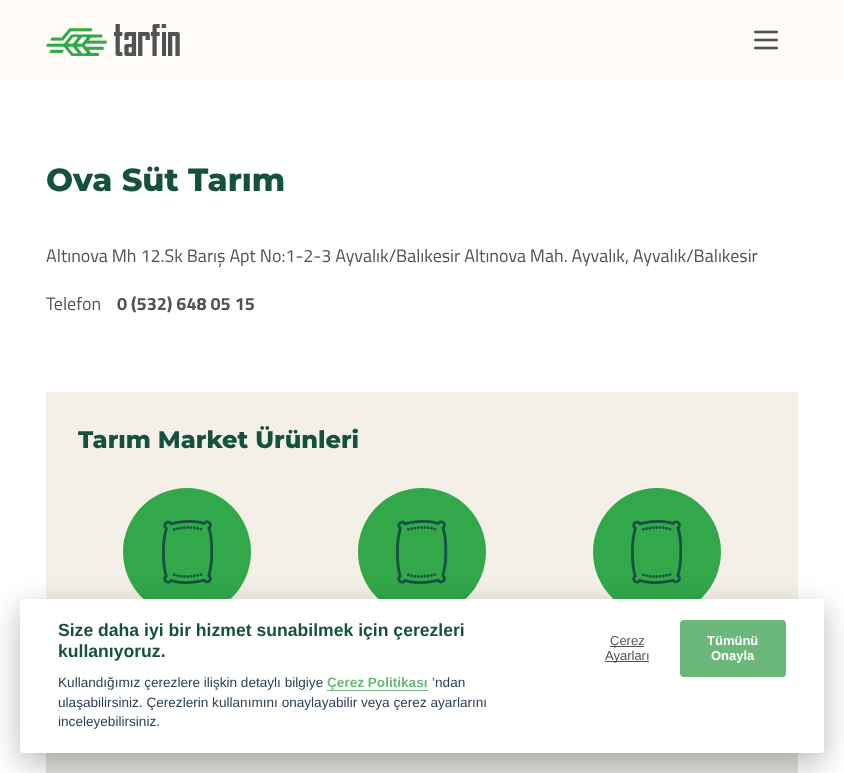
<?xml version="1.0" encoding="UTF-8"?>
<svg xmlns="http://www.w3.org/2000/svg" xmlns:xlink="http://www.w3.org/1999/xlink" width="844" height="773">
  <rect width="100%" height="100%" fill="#ffffff" />
  <rect width="844" height="80" fill="#fffcf7" />
  <image x="46" y="24" width="134" height="32" xlink:href="image1.png" />
  <image x="754" y="30" width="24" height="20" xlink:href="image2.png" />
  <rect x="46" y="392" width="752" height="207" fill="#f4f0e8" />
  <circle cx="187" cy="552" r="64" fill="#32a84b" />
  <image x="162" y="520" width="51" height="64" xlink:href="image3.png" />
  <circle cx="422" cy="552" r="64" fill="#32a84b" />
  <image x="396" y="520" width="52" height="64" xlink:href="image4.png" />
  <circle cx="657" cy="552" r="64" fill="#32a84b" />
  <image x="631" y="520" width="51" height="64" xlink:href="image3.png" />
  <rect x="46" y="753" width="752" height="20" fill="#e5e3df" />
  <rect x="20" y="609" width="804" height="154" rx="4" fill="#020203" fill-opacity="0.28" filter="blur(15px)" />
  <rect x="20" y="599" width="804" height="154" rx="4" fill="#ffffff" />
  <rect x="327" y="690" width="101" height="1" fill="#6cb87a" />
  <rect x="610" y="646" width="34" height="1" fill="#505254" />
  <rect x="605" y="661" width="44" height="1" fill="#505254" />
  <rect x="680" y="620" width="106" height="57" rx="4" fill="#6cb87a" />
  <text x="46" y="191" style="font-family: Montserrat; font-size: 32px; font-weight: 800; fill: #165140">Ova Süt Tarım</text>
  <text x="46" y="262" style="font-family: Titillium Web; font-size: 18px; fill: #505254">Altınova Mh 12.Sk Barış Apt No:1-2-3 Ayvalık/Balıkesir Altınova Mah. Ayvalık, Ayvalık/Balıkesir</text>
  <text x="46" y="310" style="font-family: Titillium Web; font-size: 18px; fill: #505254">Telefon</text>
  <text x="117" y="310" style="font-family: Titillium Web; font-size: 18px; font-weight: bold; fill: #505254">0 (532) 648 05 15</text>
  <text x="78" y="448" style="font-family: Montserrat; font-size: 24px; font-weight: 800; fill: #165140">Tarım Market Ürünleri</text>
  <text x="58" y="636" style="font-family: Liberation Sans; font-size: 17.6px; font-weight: bold; fill: #165140">Size daha iyi bir hizmet sunabilmek için çerezleri</text>
  <text x="58" y="657" style="font-family: Liberation Sans; font-size: 17.6px; font-weight: bold; fill: #165140">kullanıyoruz.</text>
  <text x="58" y="687" style="font-family: Liberation Sans; font-size: 13.6px; fill: #2d4156">Kullandığımız çerezlere ilişkin detaylı bilgiye</text>
  <text x="327" y="687" style="font-family: Liberation Sans; font-size: 13.6px; font-weight: bold; fill: #6cb87a">Çerez Politikası</text>
  <text x="432" y="687" style="font-family: Liberation Sans; font-size: 13.6px; fill: #2d4156">’ndan</text>
  <text x="58" y="707" style="font-family: Liberation Sans; font-size: 13.6px; fill: #2d4156">ulaşabilirsiniz. Çerezlerin kullanımını onaylayabilir veya çerez ayarlarını</text>
  <text x="58" y="726" style="font-family: Liberation Sans; font-size: 13.6px; fill: #2d4156">inceleyebilirsiniz.</text>
  <text x="610" y="645" style="font-family: Liberation Sans; font-size: 13px; fill: #505254">Çerez</text>
  <text x="605" y="660" style="font-family: Liberation Sans; font-size: 13px; fill: #505254">Ayarları</text>
  <text x="707" y="645" style="font-family: Liberation Sans; font-size: 13px; font-weight: bold; fill: #ffffff">Tümünü</text>
  <text x="711" y="660" style="font-family: Liberation Sans; font-size: 13px; font-weight: bold; fill: #ffffff">Onayla</text>
</svg>
